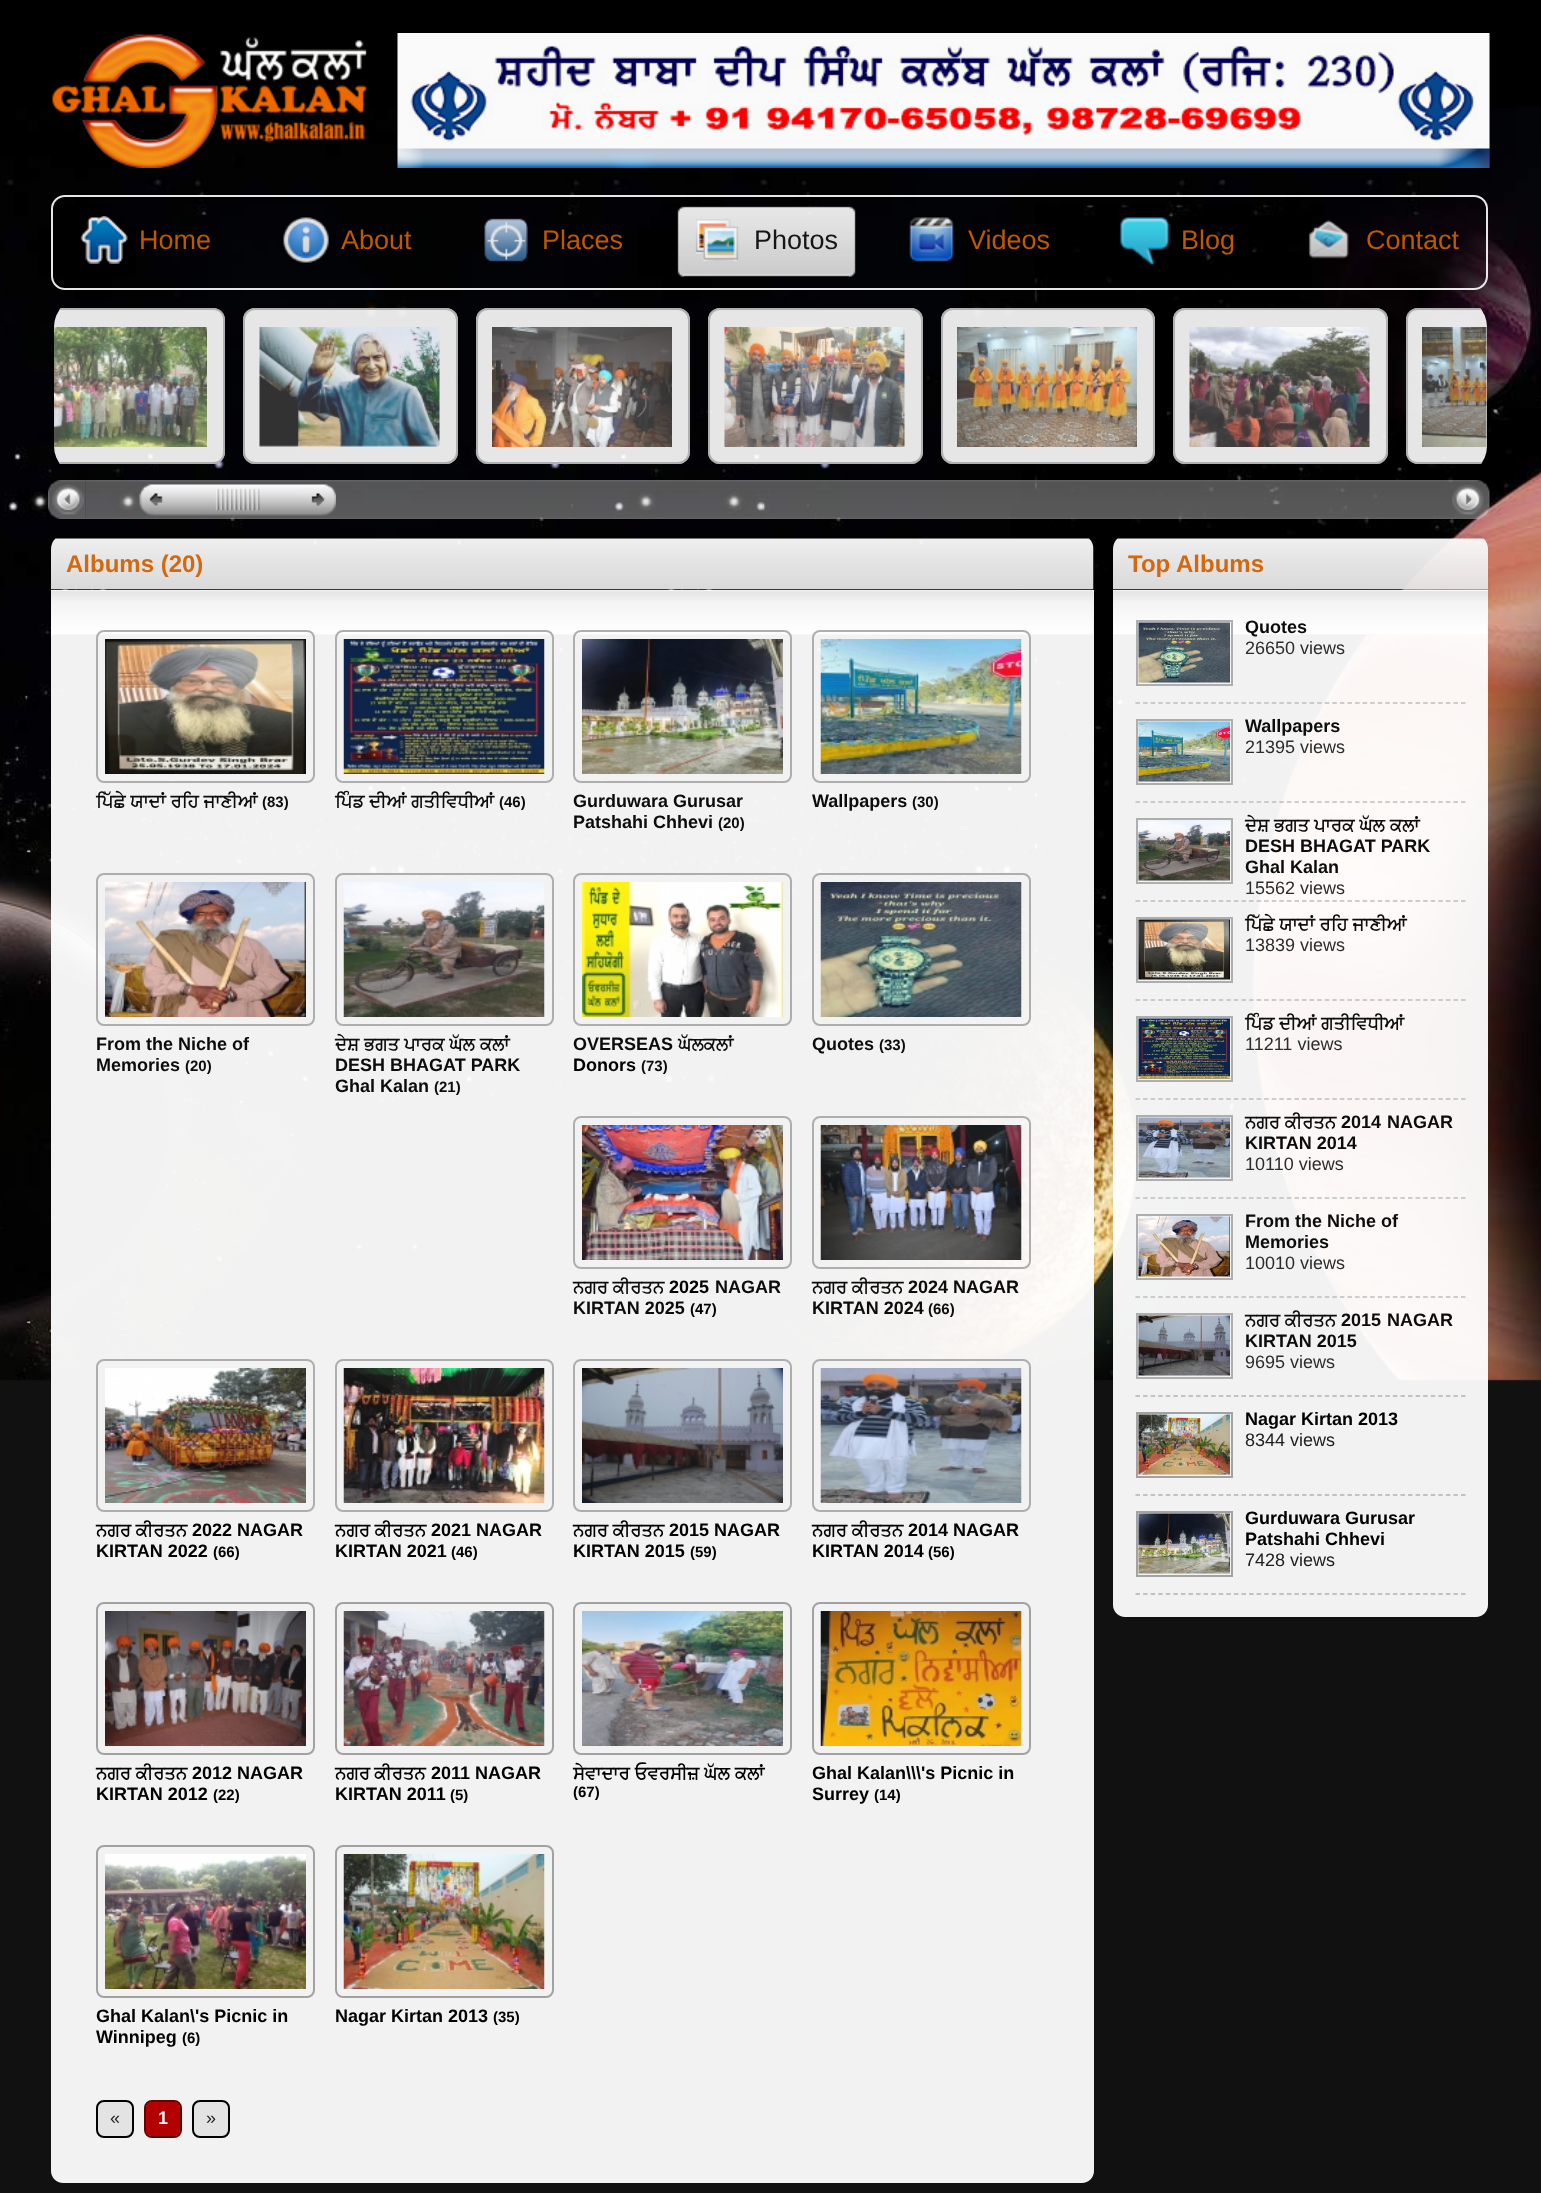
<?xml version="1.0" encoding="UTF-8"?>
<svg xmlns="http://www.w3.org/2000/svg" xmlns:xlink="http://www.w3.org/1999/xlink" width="1541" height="2193">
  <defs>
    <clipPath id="clip1"><rect x="54" y="297" width="1433" height="179" rx="30" /></clipPath>
  </defs>
  <rect width="100%" height="100%" fill="#111111" />
  <image x="0" y="0" width="1541" height="1381" xlink:href="image1.png" />
  <image x="52" y="34" width="315" height="134" xlink:href="image2.png" />
  <rect x="398" y="33" width="1092" height="135" fill="#111111" fill-opacity="0.98" />
  <image x="397" y="33" width="1093" height="135" xlink:href="image3.png" />
  <rect x="52" y="196" width="1435" height="93" rx="13" fill="none" stroke="#ffffff" stroke-opacity="0.9" stroke-width="2" />
  <image x="80" y="216" width="48" height="48" xlink:href="image4.png" />
  <image x="283" y="217" width="46" height="46" xlink:href="image5.png" />
  <image x="484" y="218" width="44" height="44" xlink:href="image6.png" />
  <image x="677" y="206" width="7" height="71" xlink:href="image7.png" />
  <image x="684" y="206" width="165" height="71" xlink:href="image8.png" />
  <image x="695" y="219" width="44" height="43" xlink:href="image9.png" />
  <image x="849" y="206" width="7" height="71" xlink:href="image10.png" />
  <image x="909" y="217" width="45" height="45" xlink:href="image11.png" />
  <image x="1120" y="217" width="49" height="48" xlink:href="image12.png" />
  <image x="1308" y="220" width="41" height="39" xlink:href="image13.png" />
  <g clip-path="url(#clip1)">
    <path d="M 54 308 h 159 c 6.5 0 12 5.5 12 12 v 132 c 0 6.5 -5.5 12 -12 12 h -159 z" fill="#ffffff" fill-opacity="0.9" />
  </g>
  <path d="M 60 464 h 153 c 7 0 12 -5 12 -12 v -132 c 0 -7 -5 -12 -12 -12 h -152 l -2 2 h 154 c 6 0 10 4 10 10 v 132 c 0 6 -4 10 -10 10 h -154 z" fill="#aaaaaa" fill-opacity="0.9" />
  <image x="54" y="327" width="153" height="120" xlink:href="image14.png" />
  <rect x="243" y="308" width="215" height="156" rx="12" fill="#ffffff" fill-opacity="0.9" />
  <rect x="244" y="309" width="213" height="154" rx="11" fill="none" stroke="#aaaaaa" stroke-opacity="0.9" stroke-width="2" />
  <image x="259" y="327" width="181" height="120" xlink:href="image15.png" />
  <rect x="476" y="308" width="214" height="156" rx="12" fill="#ffffff" fill-opacity="0.9" />
  <rect x="477" y="309" width="212" height="154" rx="11" fill="none" stroke="#aaaaaa" stroke-opacity="0.9" stroke-width="2" />
  <image x="492" y="327" width="180" height="120" xlink:href="image16.png" />
  <rect x="708" y="308" width="215" height="156" rx="12" fill="#ffffff" fill-opacity="0.9" />
  <rect x="709" y="309" width="213" height="154" rx="11" fill="none" stroke="#aaaaaa" stroke-opacity="0.9" stroke-width="2" />
  <image x="724" y="327" width="181" height="120" xlink:href="image17.png" />
  <rect x="941" y="308" width="214" height="156" rx="12" fill="#ffffff" fill-opacity="0.9" />
  <rect x="942" y="309" width="212" height="154" rx="11" fill="none" stroke="#aaaaaa" stroke-opacity="0.9" stroke-width="2" />
  <image x="957" y="327" width="180" height="120" xlink:href="image18.png" />
  <rect x="1173" y="308" width="215" height="156" rx="12" fill="#ffffff" fill-opacity="0.9" />
  <rect x="1174" y="309" width="213" height="154" rx="11" fill="none" stroke="#aaaaaa" stroke-opacity="0.9" stroke-width="2" />
  <image x="1189" y="327" width="181" height="120" xlink:href="image19.png" />
  <g clip-path="url(#clip1)">
    <path d="M 1418 308 h 69 v 156 h -69 c -6.5 0 -12 -5.5 -12 -12 v -132 c 0 -6.5 5.5 -12 12 -12 z" fill="#ffffff" fill-opacity="0.9" />
  </g>
  <path d="M 1418 308 c -7 0 -12 5 -12 12 v 132 c 0 7 5 12 12 12 h 63 l 1 -2 h -64 c -6 0 -10 -4 -10 -10 v -132 c 0 -6 4 -10 10 -10 h 64 l -2 -2 z" fill="#aaaaaa" fill-opacity="0.9" />
  <image x="1422" y="327" width="65" height="120" xlink:href="image20.png" />
  <image x="48" y="480" width="38" height="39" xlink:href="image21.png" />
  <image x="52" y="484" width="32" height="31" xlink:href="image22.png" />
  <image x="60" y="511" width="17" height="4" xlink:href="image23.png" />
  <image x="85" y="480" width="1367" height="39" xlink:href="image24.png" />
  <image x="139" y="484" width="197" height="32" xlink:href="image25.png" />
  <image x="1452" y="480" width="38" height="39" xlink:href="image26.png" />
  <image x="1452" y="484" width="32" height="31" xlink:href="image27.png" />
  <image x="1459" y="511" width="17" height="4" xlink:href="image28.png" />
  <image x="51" y="538" width="1043" height="52" xlink:href="image29.png" />
  <path d="M 51 590 h 1043 v 1581 c 0 6.5 -5.5 12 -12 12 h -1019 c -6.5 0 -12 -5.5 -12 -12 z" fill="#ffffff" fill-opacity="0.95" />
  <image x="51" y="591" width="1042" height="44" xlink:href="image30.png" />
  <rect x="97" y="631" width="217" height="151" rx="7" fill="none" stroke="#aaaaaa" stroke-opacity="0.95" stroke-width="2" />
  <image x="105" y="639" width="201" height="135" xlink:href="image31.png" />
  <rect x="336" y="631" width="217" height="151" rx="7" fill="none" stroke="#aaaaaa" stroke-opacity="0.95" stroke-width="2" />
  <image x="343" y="639" width="202" height="135" xlink:href="image32.png" />
  <rect x="574" y="631" width="217" height="151" rx="7" fill="none" stroke="#aaaaaa" stroke-opacity="0.95" stroke-width="2" />
  <image x="582" y="639" width="201" height="135" xlink:href="image33.png" />
  <rect x="813" y="631" width="217" height="151" rx="7" fill="none" stroke="#aaaaaa" stroke-opacity="0.95" stroke-width="2" />
  <image x="820" y="639" width="202" height="135" xlink:href="image34.png" />
  <rect x="97" y="874" width="217" height="151" rx="7" fill="none" stroke="#aaaaaa" stroke-opacity="0.95" stroke-width="2" />
  <image x="105" y="882" width="201" height="135" xlink:href="image35.png" />
  <rect x="336" y="874" width="217" height="151" rx="7" fill="none" stroke="#aaaaaa" stroke-opacity="0.95" stroke-width="2" />
  <image x="343" y="882" width="202" height="135" xlink:href="image36.png" />
  <rect x="574" y="874" width="217" height="151" rx="7" fill="none" stroke="#aaaaaa" stroke-opacity="0.95" stroke-width="2" />
  <image x="582" y="882" width="201" height="135" xlink:href="image37.png" />
  <rect x="813" y="874" width="217" height="151" rx="7" fill="none" stroke="#aaaaaa" stroke-opacity="0.95" stroke-width="2" />
  <image x="820" y="882" width="202" height="135" xlink:href="image38.png" />
  <rect x="574" y="1117" width="217" height="151" rx="7" fill="none" stroke="#aeaeae" stroke-width="2" />
  <image x="582" y="1125" width="201" height="135" xlink:href="image39.png" />
  <rect x="813" y="1117" width="217" height="151" rx="7" fill="none" stroke="#aaaaaa" stroke-opacity="0.95" stroke-width="2" />
  <image x="820" y="1125" width="202" height="135" xlink:href="image40.png" />
  <rect x="97" y="1360" width="217" height="151" rx="7" fill="none" stroke="#aaaaaa" stroke-opacity="0.95" stroke-width="2" />
  <image x="105" y="1368" width="201" height="135" xlink:href="image41.png" />
  <rect x="336" y="1360" width="217" height="151" rx="7" fill="none" stroke="#aeaeae" stroke-width="2" />
  <image x="343" y="1368" width="202" height="135" xlink:href="image42.png" />
  <rect x="574" y="1360" width="217" height="151" rx="7" fill="none" stroke="#aeaeae" stroke-width="2" />
  <image x="582" y="1368" width="201" height="135" xlink:href="image43.png" />
  <rect x="813" y="1360" width="217" height="151" rx="7" fill="none" stroke="#aaaaaa" stroke-opacity="0.95" stroke-width="2" />
  <image x="820" y="1368" width="202" height="135" xlink:href="image44.png" />
  <rect x="97" y="1603" width="217" height="151" rx="7" fill="none" stroke="#a2a2a2" stroke-width="2" />
  <image x="105" y="1611" width="201" height="135" xlink:href="image45.png" />
  <rect x="336" y="1603" width="217" height="151" rx="7" fill="none" stroke="#a2a2a2" stroke-width="2" />
  <image x="343" y="1611" width="202" height="135" xlink:href="image46.png" />
  <rect x="574" y="1603" width="217" height="151" rx="7" fill="none" stroke="#a2a2a2" stroke-width="2" />
  <image x="582" y="1611" width="201" height="135" xlink:href="image47.png" />
  <rect x="813" y="1603" width="217" height="151" rx="7" fill="none" stroke="#a2a2a2" stroke-width="2" />
  <image x="820" y="1611" width="202" height="135" xlink:href="image48.png" />
  <rect x="97" y="1846" width="217" height="151" rx="7" fill="none" stroke="#a2a2a2" stroke-width="2" />
  <image x="105" y="1854" width="201" height="135" xlink:href="image49.png" />
  <rect x="336" y="1846" width="217" height="151" rx="7" fill="none" stroke="#a2a2a2" stroke-width="2" />
  <image x="343" y="1854" width="202" height="135" xlink:href="image50.png" />
  <rect x="97" y="2101" width="36" height="36" rx="7" fill="#e3e3e3" stroke="#010101" stroke-width="2" />
  <rect x="145" y="2101" width="36" height="36" rx="7" fill="none" stroke="#620101" stroke-width="2" />
  <rect x="146" y="2102" width="34" height="34" rx="5" fill="#b30101" />
  <rect x="193" y="2101" width="36" height="36" rx="7" fill="#e3e3e3" stroke="#010101" stroke-width="2" />
  <image x="1113" y="534" width="375" height="56" xlink:href="image51.png" />
  <path d="M 1113 590 h 375 v 1015 c 0 6.5 -5.5 12 -12 12 h -351 c -6.5 0 -12 -5.5 -12 -12 z" fill="#ffffff" fill-opacity="0.95" />
  <image x="1113" y="591" width="375" height="44" xlink:href="image52.png" />
  <path d="M 1135.5 703 h 330" fill="none" stroke="#bbbbbb" stroke-opacity="0.95" stroke-width="1.5" stroke-dasharray="4.5 3.07" />
  <rect x="1137" y="621" width="95" height="64" fill="none" stroke="#aaaaaa" stroke-opacity="0.95" stroke-width="2" />
  <image x="1138" y="622" width="92" height="61" xlink:href="image53.png" />
  <path d="M 1135.5 802 h 330" fill="none" stroke="#bbbbbb" stroke-opacity="0.95" stroke-width="1.5" stroke-dasharray="4.5 3.07" />
  <rect x="1137" y="720" width="95" height="64" fill="none" stroke="#aeaeae" stroke-width="2" />
  <image x="1138" y="721" width="92" height="61" xlink:href="image54.png" />
  <path d="M 1135.5 901 h 330" fill="none" stroke="#bbbbbb" stroke-opacity="0.95" stroke-width="1.5" stroke-dasharray="4.5 3.07" />
  <rect x="1137" y="819" width="95" height="64" fill="none" stroke="#aeaeae" stroke-width="2" />
  <image x="1138" y="820" width="92" height="61" xlink:href="image55.png" />
  <path d="M 1135.5 1000 h 330" fill="none" stroke="#bbbbbb" stroke-opacity="0.95" stroke-width="1.5" stroke-dasharray="4.5 3.07" />
  <rect x="1137" y="918" width="95" height="64" fill="none" stroke="#aeaeae" stroke-width="2" />
  <image x="1138" y="919" width="92" height="61" xlink:href="image56.png" />
  <path d="M 1135.5 1099 h 330" fill="none" stroke="#bbbbbb" stroke-opacity="0.95" stroke-width="1.5" stroke-dasharray="4.5 3.07" />
  <rect x="1137" y="1017" width="95" height="64" fill="none" stroke="#aeaeae" stroke-width="2" />
  <image x="1138" y="1018" width="92" height="61" xlink:href="image57.png" />
  <path d="M 1135.5 1198 h 330" fill="none" stroke="#bbbbbb" stroke-opacity="0.95" stroke-width="1.5" stroke-dasharray="4.5 3.07" />
  <rect x="1137" y="1116" width="95" height="64" fill="none" stroke="#aaaaaa" stroke-opacity="0.95" stroke-width="2" />
  <image x="1138" y="1117" width="92" height="61" xlink:href="image58.png" />
  <path d="M 1135.5 1297 h 330" fill="none" stroke="#bbbbbb" stroke-opacity="0.95" stroke-width="1.5" stroke-dasharray="4.5 3.07" />
  <rect x="1137" y="1215" width="95" height="64" fill="none" stroke="#aeaeae" stroke-width="2" />
  <image x="1138" y="1216" width="92" height="61" xlink:href="image59.png" />
  <path d="M 1135.5 1396 h 330" fill="none" stroke="#b3b3b3" stroke-width="1.5" stroke-dasharray="4.5 3.07" />
  <rect x="1137" y="1314" width="95" height="64" fill="none" stroke="#aeaeae" stroke-width="2" />
  <image x="1138" y="1315" width="92" height="61" xlink:href="image60.png" />
  <path d="M 1135.5 1495 h 330" fill="none" stroke="#b3b3b3" stroke-width="1.5" stroke-dasharray="4.5 3.07" />
  <rect x="1137" y="1413" width="95" height="64" fill="none" stroke="#a2a2a2" stroke-width="2" />
  <image x="1138" y="1414" width="92" height="61" xlink:href="image61.png" />
  <path d="M 1135.5 1594 h 330" fill="none" stroke="#b3b3b3" stroke-width="1.5" stroke-dasharray="4.5 3.07" />
  <rect x="1137" y="1512" width="95" height="64" fill="none" stroke="#a2a2a2" stroke-width="2" />
  <image x="1138" y="1513" width="92" height="61" xlink:href="image62.png" />
  <text x="139" y="249" style="font-family: Liberation Sans; font-size: 27px; fill: #be5803">Home</text>
  <text x="341" y="249" style="font-family: Liberation Sans; font-size: 27px; fill: #be5803">About</text>
  <text x="542" y="249" style="font-family: Liberation Sans; font-size: 27px; fill: #be5803">Places</text>
  <text x="754" y="249" style="font-family: Liberation Sans; font-size: 27px; fill: #161616">Photos</text>
  <text x="968" y="249" style="font-family: Liberation Sans; font-size: 27px; fill: #be5803">Videos</text>
  <text x="1181" y="249" style="font-family: Liberation Sans; font-size: 27px; fill: #be5803">Blog</text>
  <text x="1366" y="249" style="font-family: Liberation Sans; font-size: 27px; fill: #be5803">Contact</text>
  <text x="66" y="572" style="font-family: Liberation Sans; font-size: 24px; font-weight: bold; fill: #d4680e">Albums (20)</text>
  <text x="96" y="807" word-spacing="0.5" style="font-family: FreeSans; font-size: 18px; font-weight: bold; fill: #0c0c0c">ਪਿੱਛੇ ਯਾਦਾਂ ਰਹਿ ਜਾਣੀਆਂ</text>
  <text x="262" y="807" style="font-family: Liberation Sans; font-size: 15px; font-weight: bold; fill: #0c0c0c">(83)</text>
  <text x="335" y="807" word-spacing="0.5" style="font-family: FreeSans; font-size: 18px; font-weight: bold; fill: #0c0c0c">ਪਿੰਡ ਦੀਆਂ ਗਤੀਵਿਧੀਆਂ</text>
  <text x="499" y="807" style="font-family: Liberation Sans; font-size: 15px; font-weight: bold; fill: #0c0c0c">(46)</text>
  <text x="573" y="807" style="font-family: Liberation Sans; font-size: 18px; font-weight: bold; fill: #0c0c0c">Gurduwara Gurusar</text>
  <text x="573" y="828" style="font-family: Liberation Sans; font-size: 18px; font-weight: bold; fill: #0c0c0c">Patshahi Chhevi</text>
  <text x="718" y="828" style="font-family: Liberation Sans; font-size: 15px; font-weight: bold; fill: #0c0c0c">(20)</text>
  <text x="812" y="807" style="font-family: Liberation Sans; font-size: 18px; font-weight: bold; fill: #0c0c0c">Wallpapers</text>
  <text x="912" y="807" style="font-family: Liberation Sans; font-size: 15px; font-weight: bold; fill: #0c0c0c">(30)</text>
  <text x="96" y="1050" style="font-family: Liberation Sans; font-size: 18px; font-weight: bold; fill: #0c0c0c">From the Niche of</text>
  <text x="96" y="1071" style="font-family: Liberation Sans; font-size: 18px; font-weight: bold; fill: #0c0c0c">Memories</text>
  <text x="185" y="1071" style="font-family: Liberation Sans; font-size: 15px; font-weight: bold; fill: #0c0c0c">(20)</text>
  <text x="335" y="1050" word-spacing="0.5" style="font-family: FreeSans; font-size: 18px; font-weight: bold; fill: #0c0c0c">ਦੇਸ਼ ਭਗਤ ਪਾਰਕ ਘੱਲ ਕਲਾਂ</text>
  <text x="335" y="1071" style="font-family: Liberation Sans; font-size: 18px; font-weight: bold; fill: #0c0c0c">DESH BHAGAT PARK</text>
  <text x="335" y="1092" style="font-family: Liberation Sans; font-size: 18px; font-weight: bold; fill: #0c0c0c">Ghal Kalan</text>
  <text x="434" y="1092" style="font-family: Liberation Sans; font-size: 15px; font-weight: bold; fill: #0c0c0c">(21)</text>
  <text x="573" y="1050" style="font-family: Liberation Sans; font-size: 18px; font-weight: bold; fill: #0c0c0c">OVERSEAS</text>
  <text x="678" y="1050" style="font-family: FreeSans; font-size: 18px; font-weight: bold; fill: #0c0c0c">ਘੱਲਕਲਾਂ</text>
  <text x="573" y="1071" style="font-family: Liberation Sans; font-size: 18px; font-weight: bold; fill: #000000">Donors</text>
  <text x="641" y="1071" style="font-family: Liberation Sans; font-size: 15px; font-weight: bold; fill: #0c0c0c">(73)</text>
  <text x="812" y="1050" style="font-family: Liberation Sans; font-size: 18px; font-weight: bold; fill: #0c0c0c">Quotes</text>
  <text x="879" y="1050" style="font-family: Liberation Sans; font-size: 15px; font-weight: bold; fill: #0c0c0c">(33)</text>
  <text x="573" y="1293" style="font-family: FreeSans; font-size: 18px; font-weight: bold; fill: #0c0c0c">ਨਗਰ ਕੀਰਤਨ</text>
  <text x="669" y="1293" style="font-family: Liberation Sans; font-size: 18px; font-weight: bold; fill: #000000">2025</text>
  <text x="715" y="1293" style="font-family: Liberation Sans; font-size: 18px; font-weight: bold; fill: #0c0c0c">NAGAR</text>
  <text x="573" y="1314" style="font-family: Liberation Sans; font-size: 18px; font-weight: bold; fill: #0c0c0c">KIRTAN 2025</text>
  <text x="690" y="1314" style="font-family: Liberation Sans; font-size: 15px; font-weight: bold; fill: #000000">(47)</text>
  <text x="812" y="1293" style="font-family: FreeSans; font-size: 18px; font-weight: bold; fill: #0c0c0c">ਨਗਰ ਕੀਰਤਨ</text>
  <text x="908" y="1293" style="font-family: Liberation Sans; font-size: 18px; font-weight: bold; fill: #0c0c0c">2024 NAGAR</text>
  <text x="812" y="1314" style="font-family: Liberation Sans; font-size: 18px; font-weight: bold; fill: #0c0c0c">KIRTAN 2024</text>
  <text x="928" y="1314" style="font-family: Liberation Sans; font-size: 15px; font-weight: bold; fill: #0c0c0c">(66)</text>
  <text x="96" y="1536" style="font-family: FreeSans; font-size: 18px; font-weight: bold; fill: #000000">ਨਗਰ ਕੀਰਤਨ</text>
  <text x="192" y="1536" style="font-family: Liberation Sans; font-size: 18px; font-weight: bold; fill: #000000">2022 NAGAR</text>
  <text x="96" y="1557" style="font-family: Liberation Sans; font-size: 18px; font-weight: bold; fill: #000000">KIRTAN 2022</text>
  <text x="213" y="1557" style="font-family: Liberation Sans; font-size: 15px; font-weight: bold; fill: #000000">(66)</text>
  <text x="335" y="1536" style="font-family: FreeSans; font-size: 18px; font-weight: bold; fill: #000000">ਨਗਰ ਕੀਰਤਨ</text>
  <text x="431" y="1536" style="font-family: Liberation Sans; font-size: 18px; font-weight: bold; fill: #000000">2021 NAGAR</text>
  <text x="335" y="1557" style="font-family: Liberation Sans; font-size: 18px; font-weight: bold; fill: #000000">KIRTAN 2021</text>
  <text x="451" y="1557" style="font-family: Liberation Sans; font-size: 15px; font-weight: bold; fill: #000000">(46)</text>
  <text x="573" y="1536" style="font-family: FreeSans; font-size: 18px; font-weight: bold; fill: #000000">ਨਗਰ ਕੀਰਤਨ</text>
  <text x="669" y="1536" style="font-family: Liberation Sans; font-size: 18px; font-weight: bold; fill: #000000">2015 NAGAR</text>
  <text x="573" y="1557" style="font-family: Liberation Sans; font-size: 18px; font-weight: bold; fill: #000000">KIRTAN 2015</text>
  <text x="690" y="1557" style="font-family: Liberation Sans; font-size: 15px; font-weight: bold; fill: #000000">(59)</text>
  <text x="812" y="1536" style="font-family: FreeSans; font-size: 18px; font-weight: bold; fill: #000000">ਨਗਰ ਕੀਰਤਨ</text>
  <text x="908" y="1536" style="font-family: Liberation Sans; font-size: 18px; font-weight: bold; fill: #000000">2014 NAGAR</text>
  <text x="812" y="1557" style="font-family: Liberation Sans; font-size: 18px; font-weight: bold; fill: #000000">KIRTAN 2014</text>
  <text x="928" y="1557" style="font-family: Liberation Sans; font-size: 15px; font-weight: bold; fill: #000000">(56)</text>
  <text x="96" y="1779" style="font-family: FreeSans; font-size: 18px; font-weight: bold; fill: #000000">ਨਗਰ ਕੀਰਤਨ</text>
  <text x="192" y="1779" style="font-family: Liberation Sans; font-size: 18px; font-weight: bold; fill: #000000">2012 NAGAR</text>
  <text x="96" y="1800" style="font-family: Liberation Sans; font-size: 18px; font-weight: bold; fill: #000000">KIRTAN 2012</text>
  <text x="213" y="1800" style="font-family: Liberation Sans; font-size: 15px; font-weight: bold; fill: #000000">(22)</text>
  <text x="335" y="1779" style="font-family: FreeSans; font-size: 18px; font-weight: bold; fill: #000000">ਨਗਰ</text>
  <text x="374" y="1779" style="font-family: FreeSans; font-size: 18px; font-weight: bold; fill: #000000">ਕੀਰਤਨ</text>
  <text x="431" y="1779" style="font-family: Liberation Sans; font-size: 18px; font-weight: bold; fill: #000000">2011 NAGAR</text>
  <text x="335" y="1800" style="font-family: Liberation Sans; font-size: 18px; font-weight: bold; fill: #000000">KIRTAN 2011</text>
  <text x="450" y="1800" style="font-family: Liberation Sans; font-size: 15px; font-weight: bold; fill: #000000">(5)</text>
  <text x="573" y="1779" word-spacing="0.5" style="font-family: FreeSans; font-size: 18px; font-weight: bold; fill: #000000">ਸੇਵਾਦਾਰ ਓਵਰਸੀਜ਼ ਘੱਲ ਕਲਾਂ</text>
  <text x="573" y="1797" style="font-family: Liberation Sans; font-size: 15px; font-weight: bold; fill: #000000">(67)</text>
  <text x="812" y="1779" style="font-family: Liberation Sans; font-size: 18px; font-weight: bold; fill: #000000">Ghal Kalan\\\'s Picnic in</text>
  <text x="812" y="1800" style="font-family: Liberation Sans; font-size: 18px; font-weight: bold; fill: #000000">Surrey</text>
  <text x="874" y="1800" style="font-family: Liberation Sans; font-size: 15px; font-weight: bold; fill: #000000">(14)</text>
  <text x="96" y="2022" style="font-family: Liberation Sans; font-size: 18px; font-weight: bold; fill: #000000">Ghal Kalan\'s Picnic in</text>
  <text x="96" y="2043" style="font-family: Liberation Sans; font-size: 18px; font-weight: bold; fill: #000000">Winnipeg</text>
  <text x="182" y="2043" style="font-family: Liberation Sans; font-size: 15px; font-weight: bold; fill: #000000">(6)</text>
  <text x="335" y="2022" style="font-family: Liberation Sans; font-size: 18px; font-weight: bold; fill: #000000">Nagar Kirtan 2013</text>
  <text x="493" y="2022" style="font-family: Liberation Sans; font-size: 15px; font-weight: bold; fill: #000000">(35)</text>
  <text x="110" y="2124" style="font-family: Liberation Sans; font-size: 18px; fill: #212121">«</text>
  <text x="158" y="2124" style="font-family: Liberation Sans; font-size: 18px; font-weight: bold; fill: #f3f3f3">1</text>
  <text x="206" y="2124" style="font-family: Liberation Sans; font-size: 18px; fill: #212121">»</text>
  <text x="1128" y="572" style="font-family: Liberation Sans; font-size: 24px; font-weight: bold; fill: #d4680e">Top Albums</text>
  <text x="1245" y="633" style="font-family: Liberation Sans; font-size: 18px; font-weight: bold; fill: #0c0c0c">Quotes</text>
  <text x="1245" y="654" style="font-family: Liberation Sans; font-size: 18px; fill: #2c2c2c">26650 views</text>
  <text x="1245" y="732" style="font-family: Liberation Sans; font-size: 18px; font-weight: bold; fill: #0c0c0c">Wallpapers</text>
  <text x="1245" y="753" style="font-family: Liberation Sans; font-size: 18px; fill: #2c2c2c">21395 views</text>
  <text x="1245" y="831" word-spacing="0.5" style="font-family: FreeSans; font-size: 18px; font-weight: bold; fill: #0c0c0c">ਦੇਸ਼ ਭਗਤ ਪਾਰਕ ਘੱਲ ਕਲਾਂ</text>
  <text x="1245" y="852" style="font-family: Liberation Sans; font-size: 18px; font-weight: bold; fill: #0c0c0c">DESH BHAGAT PARK</text>
  <text x="1245" y="873" style="font-family: Liberation Sans; font-size: 18px; font-weight: bold; fill: #0c0c0c">Ghal Kalan</text>
  <text x="1245" y="894" style="font-family: Liberation Sans; font-size: 18px; fill: #2c2c2c">15562 views</text>
  <text x="1245" y="930" word-spacing="0.5" style="font-family: FreeSans; font-size: 18px; font-weight: bold; fill: #0c0c0c">ਪਿੱਛੇ ਯਾਦਾਂ ਰਹਿ ਜਾਣੀਆਂ</text>
  <text x="1245" y="951" style="font-family: Liberation Sans; font-size: 18px; fill: #2c2c2c">13839 views</text>
  <text x="1245" y="1029" word-spacing="0.5" style="font-family: FreeSans; font-size: 18px; font-weight: bold; fill: #0c0c0c">ਪਿੰਡ ਦੀਆਂ ਗਤੀਵਿਧੀਆਂ</text>
  <text x="1245" y="1050" style="font-family: Liberation Sans; font-size: 18px; fill: #2c2c2c">11211 views</text>
  <text x="1245" y="1128" style="font-family: FreeSans; font-size: 18px; font-weight: bold; fill: #0c0c0c">ਨਗਰ ਕੀਰਤਨ</text>
  <text x="1341" y="1128" style="font-family: Liberation Sans; font-size: 18px; font-weight: bold; fill: #0c0c0c">2014</text>
  <text x="1387" y="1128" style="font-family: Liberation Sans; font-size: 18px; font-weight: bold; fill: #0c0c0c">NAGAR</text>
  <text x="1245" y="1149" style="font-family: Liberation Sans; font-size: 18px; font-weight: bold; fill: #0c0c0c">KIRTAN 2014</text>
  <text x="1245" y="1170" style="font-family: Liberation Sans; font-size: 18px; fill: #2c2c2c">10110 views</text>
  <text x="1245" y="1227" style="font-family: Liberation Sans; font-size: 18px; font-weight: bold; fill: #0c0c0c">From the Niche of</text>
  <text x="1245" y="1248" style="font-family: Liberation Sans; font-size: 18px; font-weight: bold; fill: #0c0c0c">Memories</text>
  <text x="1245" y="1269" style="font-family: Liberation Sans; font-size: 18px; fill: #2c2c2c">10010 views</text>
  <text x="1245" y="1326" style="font-family: FreeSans; font-size: 18px; font-weight: bold; fill: #0c0c0c">ਨਗਰ ਕੀਰਤਨ</text>
  <text x="1341" y="1326" style="font-family: Liberation Sans; font-size: 18px; font-weight: bold; fill: #0c0c0c">2015</text>
  <text x="1387" y="1326" style="font-family: Liberation Sans; font-size: 18px; font-weight: bold; fill: #0c0c0c">NAGAR</text>
  <text x="1245" y="1347" style="font-family: Liberation Sans; font-size: 18px; font-weight: bold; fill: #0c0c0c">KIRTAN 2015</text>
  <text x="1245" y="1368" style="font-family: Liberation Sans; font-size: 18px; fill: #2c2c2c">9695 views</text>
  <text x="1245" y="1425" style="font-family: Liberation Sans; font-size: 18px; font-weight: bold; fill: #000000">Nagar Kirtan 2013</text>
  <text x="1245" y="1446" style="font-family: Liberation Sans; font-size: 18px; fill: #212121">8344 views</text>
  <text x="1245" y="1524" style="font-family: Liberation Sans; font-size: 18px; font-weight: bold; fill: #000000">Gurduwara Gurusar</text>
  <text x="1245" y="1545" style="font-family: Liberation Sans; font-size: 18px; font-weight: bold; fill: #000000">Patshahi Chhevi</text>
  <text x="1245" y="1566" style="font-family: Liberation Sans; font-size: 18px; fill: #212121">7428 views</text>
</svg>
